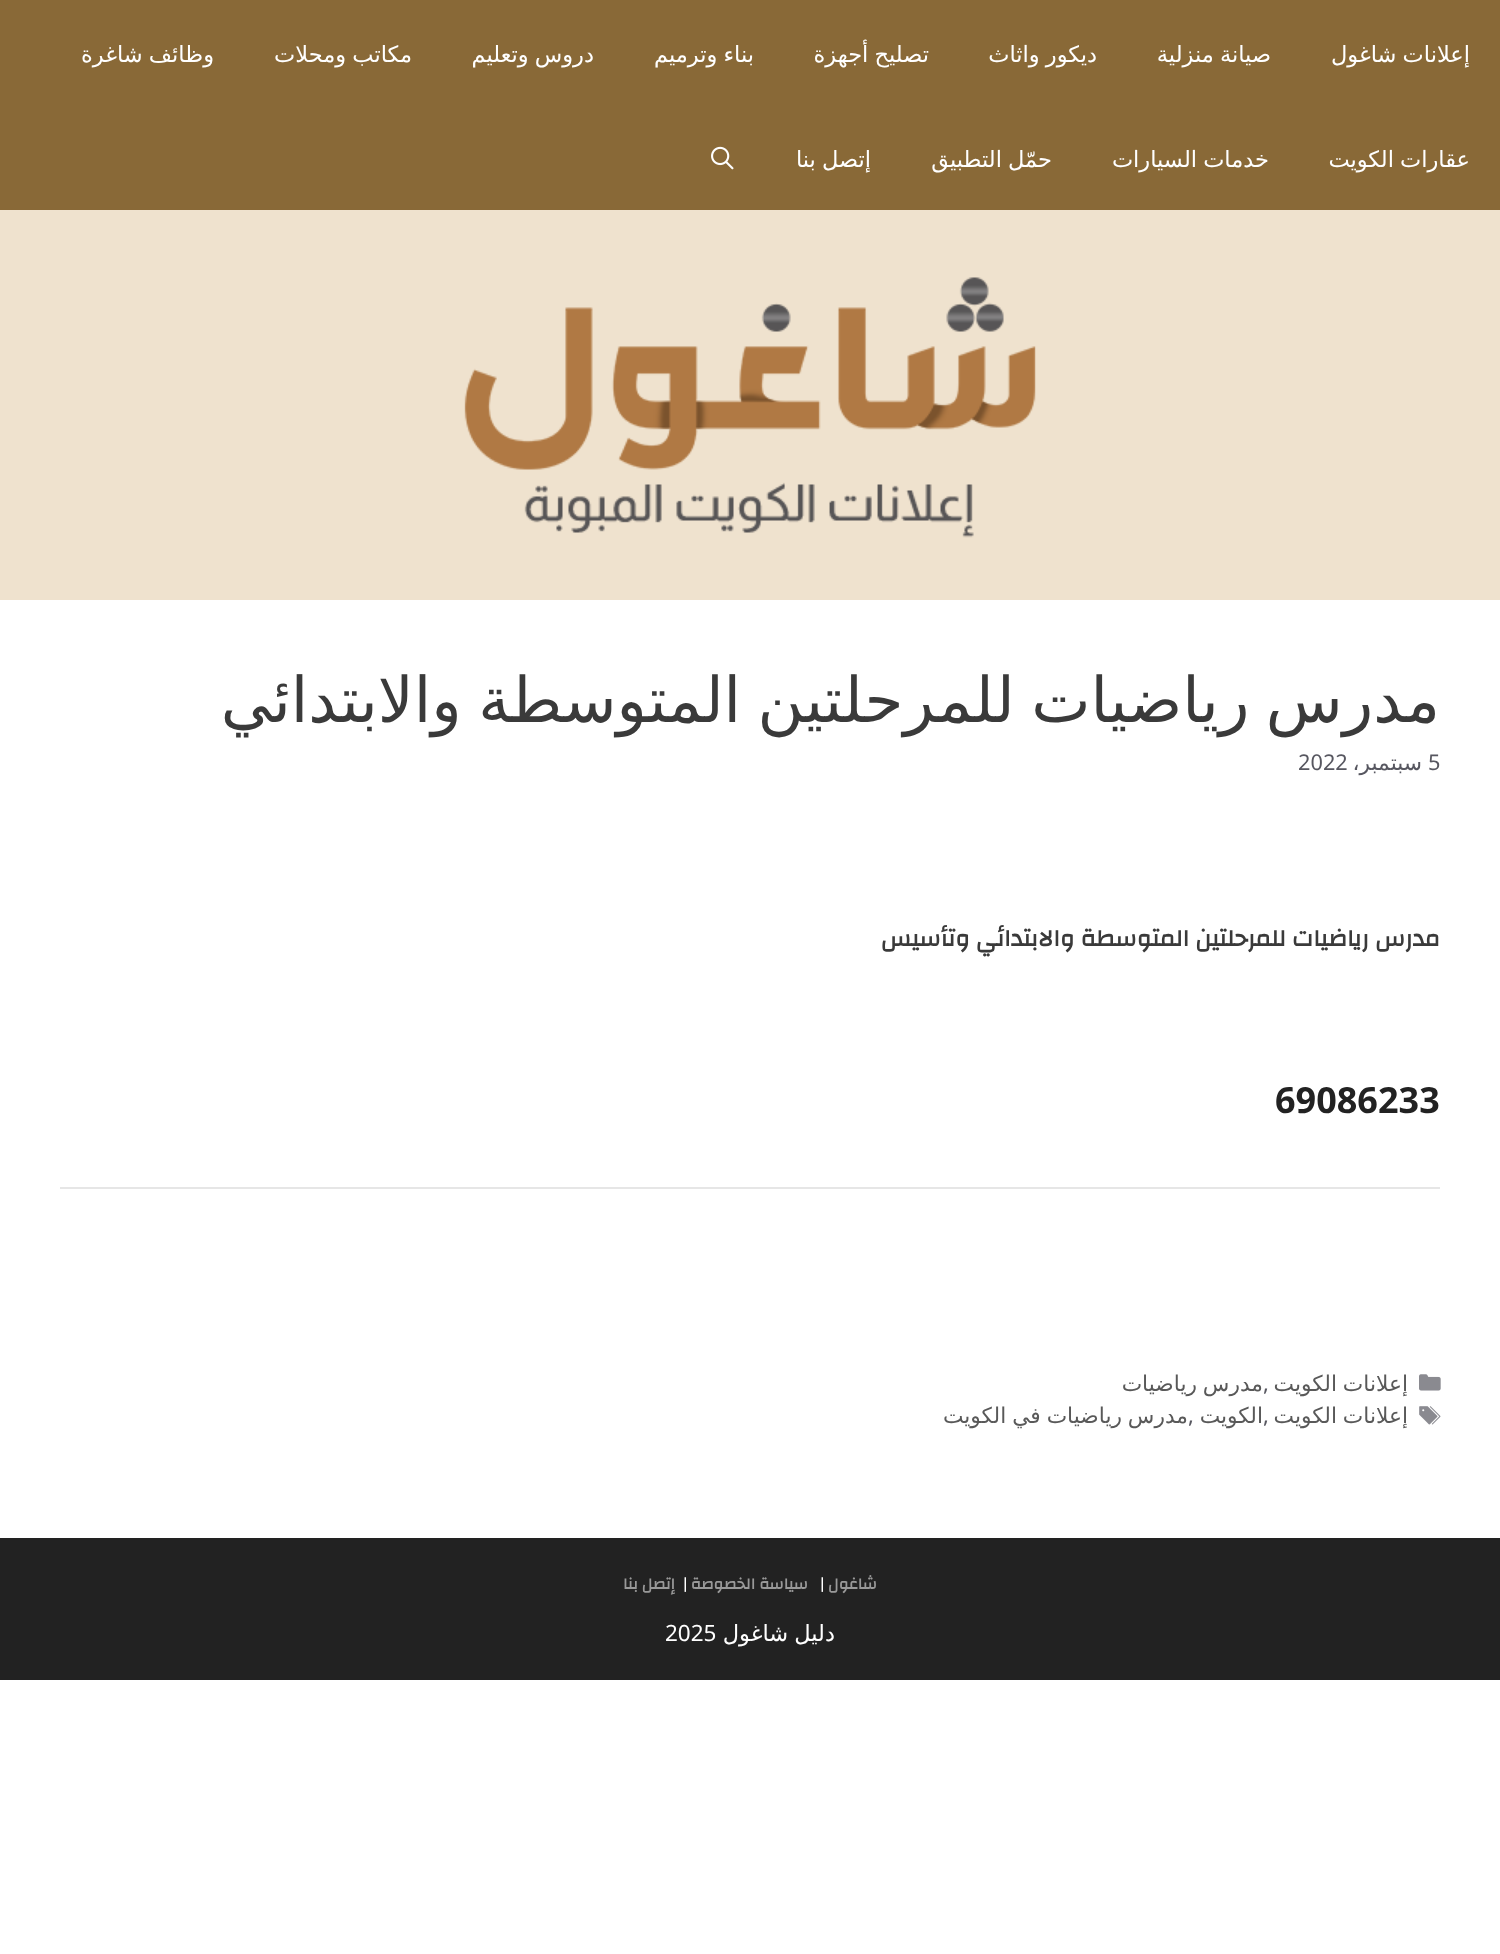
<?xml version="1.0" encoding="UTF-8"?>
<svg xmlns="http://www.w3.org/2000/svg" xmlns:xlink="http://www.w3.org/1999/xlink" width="1500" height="1954">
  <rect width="100%" height="100%" fill="#ffffff" />
  <rect width="1500" height="210" fill="#896937" />
  <image x="711" y="146" width="23" height="24" xlink:href="image1.png" />
  <rect y="210" width="1500" height="390" fill="#efe2ce" />
  <image x="464" y="277" width="572" height="261" xlink:href="image2.png" />
  <rect x="60" y="1187" width="1380" height="2" fill="#e6e6e6" />
  <image x="1419" y="1374" width="22" height="17" xlink:href="image3.png" />
  <image x="1419" y="1406" width="22" height="19" xlink:href="image4.png" />
  <rect y="1538" width="1500" height="142" fill="#222222" />
  <text x="1470" y="62" word-spacing="-1" style="font-family: DejaVu Sans; font-size: 22.5px; direction: rtl; fill: #ffffff">إعلانات شاغول</text>
  <text x="1271" y="62" word-spacing="-1" style="font-family: DejaVu Sans; font-size: 22.5px; direction: rtl; fill: #ffffff">صيانة منزلية</text>
  <text x="1097" y="62" word-spacing="-1" style="font-family: DejaVu Sans; font-size: 22.5px; direction: rtl; fill: #ffffff">ديكور واثاث</text>
  <text x="929" y="62" word-spacing="-1" style="font-family: DejaVu Sans; font-size: 22.5px; direction: rtl; fill: #ffffff">تصليح أجهزة</text>
  <text x="754" y="62" word-spacing="-1" style="font-family: DejaVu Sans; font-size: 22.5px; direction: rtl; fill: #ffffff">بناء وترميم</text>
  <text x="594" y="62" word-spacing="-1" style="font-family: DejaVu Sans; font-size: 22.5px; direction: rtl; fill: #ffffff">دروس وتعليم</text>
  <text x="412" y="62" word-spacing="-1" style="font-family: DejaVu Sans; font-size: 22.5px; direction: rtl; fill: #ffffff">مكاتب ومحلات</text>
  <text x="214" y="62" word-spacing="-1" style="font-family: DejaVu Sans; font-size: 22.5px; direction: rtl; fill: #ffffff">وظائف شاغرة</text>
  <text x="1470" y="167" word-spacing="-1" style="font-family: DejaVu Sans; font-size: 22.5px; direction: rtl; fill: #ffffff">عقارات الكويت</text>
  <text x="1269" y="167" word-spacing="-1" style="font-family: DejaVu Sans; font-size: 22.5px; direction: rtl; fill: #ffffff">خدمات السيارات</text>
  <text x="1052" y="167" word-spacing="-1" style="font-family: DejaVu Sans; font-size: 22.5px; direction: rtl; fill: #ffffff">حمّل التطبيق</text>
  <text x="871" y="167" word-spacing="-1" style="font-family: DejaVu Sans; font-size: 22.5px; direction: rtl; fill: #ffffff">إتصل بنا</text>
  <text x="1440" y="722" word-spacing="-3.5" style="font-family: DejaVu Sans; font-size: 63px; direction: rtl; fill: #3a3a3a">مدرس رياضيات للمرحلتين المتوسطة والابتدائي</text>
  <text x="1428" y="770" style="font-family: Noto Sans; font-size: 21.75px; fill: #575760">5</text>
  <text x="1422" y="770" style="font-family: DejaVu Sans; font-size: 21.75px; direction: rtl; fill: #575760">سبتمبر،</text>
  <text x="1298" y="770" style="font-family: Noto Sans; font-size: 21.75px; fill: #575760">2022</text>
  <text x="1440" y="946" style="font-family: Changa; font-size: 24px; font-weight: bold; direction: rtl; fill: #3a3a3a">مدرس رياضيات للمرحلتين المتوسطة والابتدائي وتأسيس</text>
  <text x="1275" y="1113" style="font-family: Noto Sans; font-size: 36px; font-weight: bold; fill: #222222">69086233</text>
  <text x="1408" y="1391" word-spacing="-1" style="font-family: DejaVu Sans; font-size: 21.75px; direction: rtl; fill: #595959">إعلانات الكويت</text>
  <text x="1263" y="1391" style="font-family: Noto Sans; font-size: 21.75px; fill: #575760">,</text>
  <text x="1263" y="1391" word-spacing="-1" style="font-family: DejaVu Sans; font-size: 21.75px; direction: rtl; fill: #595959">مدرس رياضيات</text>
  <text x="1408" y="1423" word-spacing="-1" style="font-family: DejaVu Sans; font-size: 21.75px; direction: rtl; fill: #595959">إعلانات الكويت</text>
  <text x="1263" y="1423" style="font-family: DejaVu Sans; font-size: 21.75px; direction: rtl; fill: #595959">الكويت</text>
  <text x="1263" y="1423" style="font-family: Noto Sans; font-size: 21.75px; fill: #575760">,</text>
  <text x="1188" y="1423" style="font-family: Noto Sans; font-size: 21.75px; fill: #575760">,</text>
  <text x="1188" y="1423" word-spacing="-1" style="font-family: DejaVu Sans; font-size: 21.75px; direction: rtl; fill: #595959">مدرس رياضيات في الكويت</text>
  <text x="877" y="1589" style="font-family: Changa; font-size: 16px; font-weight: bold; direction: rtl; fill: #999999">شاغول</text>
  <text x="820" y="1589" style="font-family: Changa; font-size: 16px; font-weight: bold; fill: #ffffff">|</text>
  <text x="808" y="1589" style="font-family: Changa; font-size: 16px; font-weight: bold; direction: rtl; fill: #999999">سياسة الخصوصة</text>
  <text x="683" y="1589" style="font-family: Changa; font-size: 16px; font-weight: bold; fill: #ffffff">|</text>
  <text x="675" y="1589" style="font-family: Changa; font-size: 16px; font-weight: bold; direction: rtl; fill: #999999">إتصل بنا</text>
  <text x="835" y="1641" word-spacing="-1" style="font-family: DejaVu Sans; font-size: 22.5px; direction: rtl; fill: #ffffff">دليل شاغول</text>
  <text x="665" y="1641" style="font-family: Noto Sans; font-size: 22.5px; fill: #ffffff">2025</text>
</svg>
